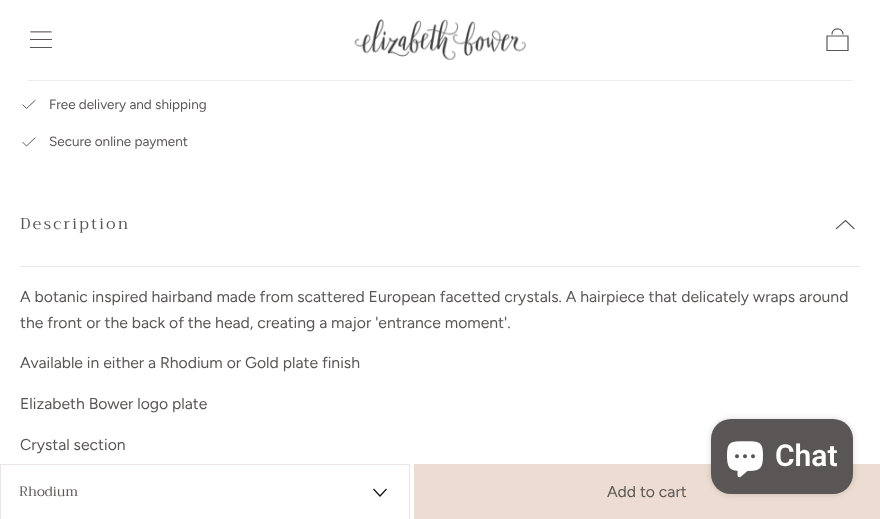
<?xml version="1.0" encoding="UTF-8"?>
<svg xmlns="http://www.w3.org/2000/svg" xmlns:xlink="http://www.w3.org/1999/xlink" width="880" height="519">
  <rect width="100%" height="100%" fill="#ffffff" />
  <image x="30" y="31" width="22" height="17" xlink:href="image1.png" />
  <image x="354" y="19" width="172" height="42" xlink:href="image2.png" />
  <path d="M 848 50.5 h -21 v -14.5 h 21 z m -5 -16 c 0 -7.5 -11 -7.5 -11 0" fill="none" stroke="#595655" stroke-width="1.2" />
  <rect x="28" y="80" width="825" height="1" fill="#eeeeee" />
  <path d="M 35 100.5 l -8.5 8 l -3.5 -3.5 m 12 33 l -8.5 8 l -3.5 -3.5" fill="none" stroke="#111111" stroke-width="0.7" stroke-linecap="square" />
  <path d="M 854 228.5 l -8.5 -8 l -9 8" fill="none" stroke="#595655" stroke-width="1.2" stroke-linecap="square" />
  <rect x="20" y="266" width="840" height="1" fill="#ede5e3" />
  <rect x="0.5" y="464.5" width="409" height="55" fill="none" stroke="#ede5e3" />
  <path d="M 386.5 489 l -6.5 7 l -6.5 -7" fill="none" stroke="#111111" stroke-width="1.2" />
  <rect x="414" y="464" width="466" height="55" fill="#ecdcd1" />
  <rect x="711" y="419" width="142" height="75" rx="20" fill="#000000" fill-opacity="0.15" filter="blur(3px)" />
  <rect x="711" y="419" width="142" height="75" rx="20" fill="#595655" />
  <image x="727" y="441" width="36" height="37" xlink:href="image3.png" />
  <text x="49" y="109" style="font-family: Figtree; font-size: 13.5px; fill: #595655">Free delivery and shipping</text>
  <text x="49" y="146" style="font-family: Figtree; font-size: 13.5px; fill: #595655">Secure online payment</text>
  <text x="20" y="229" style="font-family: Trirong; font-size: 15.75px; letter-spacing: 2.25px; fill: #595655">Description</text>
  <text x="20" y="302" style="font-family: Figtree; font-size: 15.75px; fill: #595655">A botanic inspired hairband made from scattered European facetted crystals. A hairpiece that delicately wraps around</text>
  <text x="20" y="328" style="font-family: Figtree; font-size: 15.75px; fill: #595655">the front or the back of the head, creating a major 'entrance moment'.</text>
  <text x="20" y="368" style="font-family: Figtree; font-size: 15.75px; fill: #595655">Available in either a Rhodium or Gold plate finish</text>
  <text x="20" y="409" style="font-family: Figtree; font-size: 15.75px; fill: #595655">Elizabeth Bower logo plate</text>
  <text x="20" y="450" style="font-family: Figtree; font-size: 15.75px; fill: #595655">Crystal section</text>
  <text x="19" y="496" style="font-family: Trirong; font-size: 13.5px; fill: #595655">Rhodium</text>
  <text x="607" y="497" style="font-family: Figtree; font-size: 15.75px; fill: #595655">Add to cart</text>
  <text x="775" y="466" style="font-family: Roboto; font-size: 30px; font-weight: 600; fill: #ffffff">Chat</text>
</svg>
